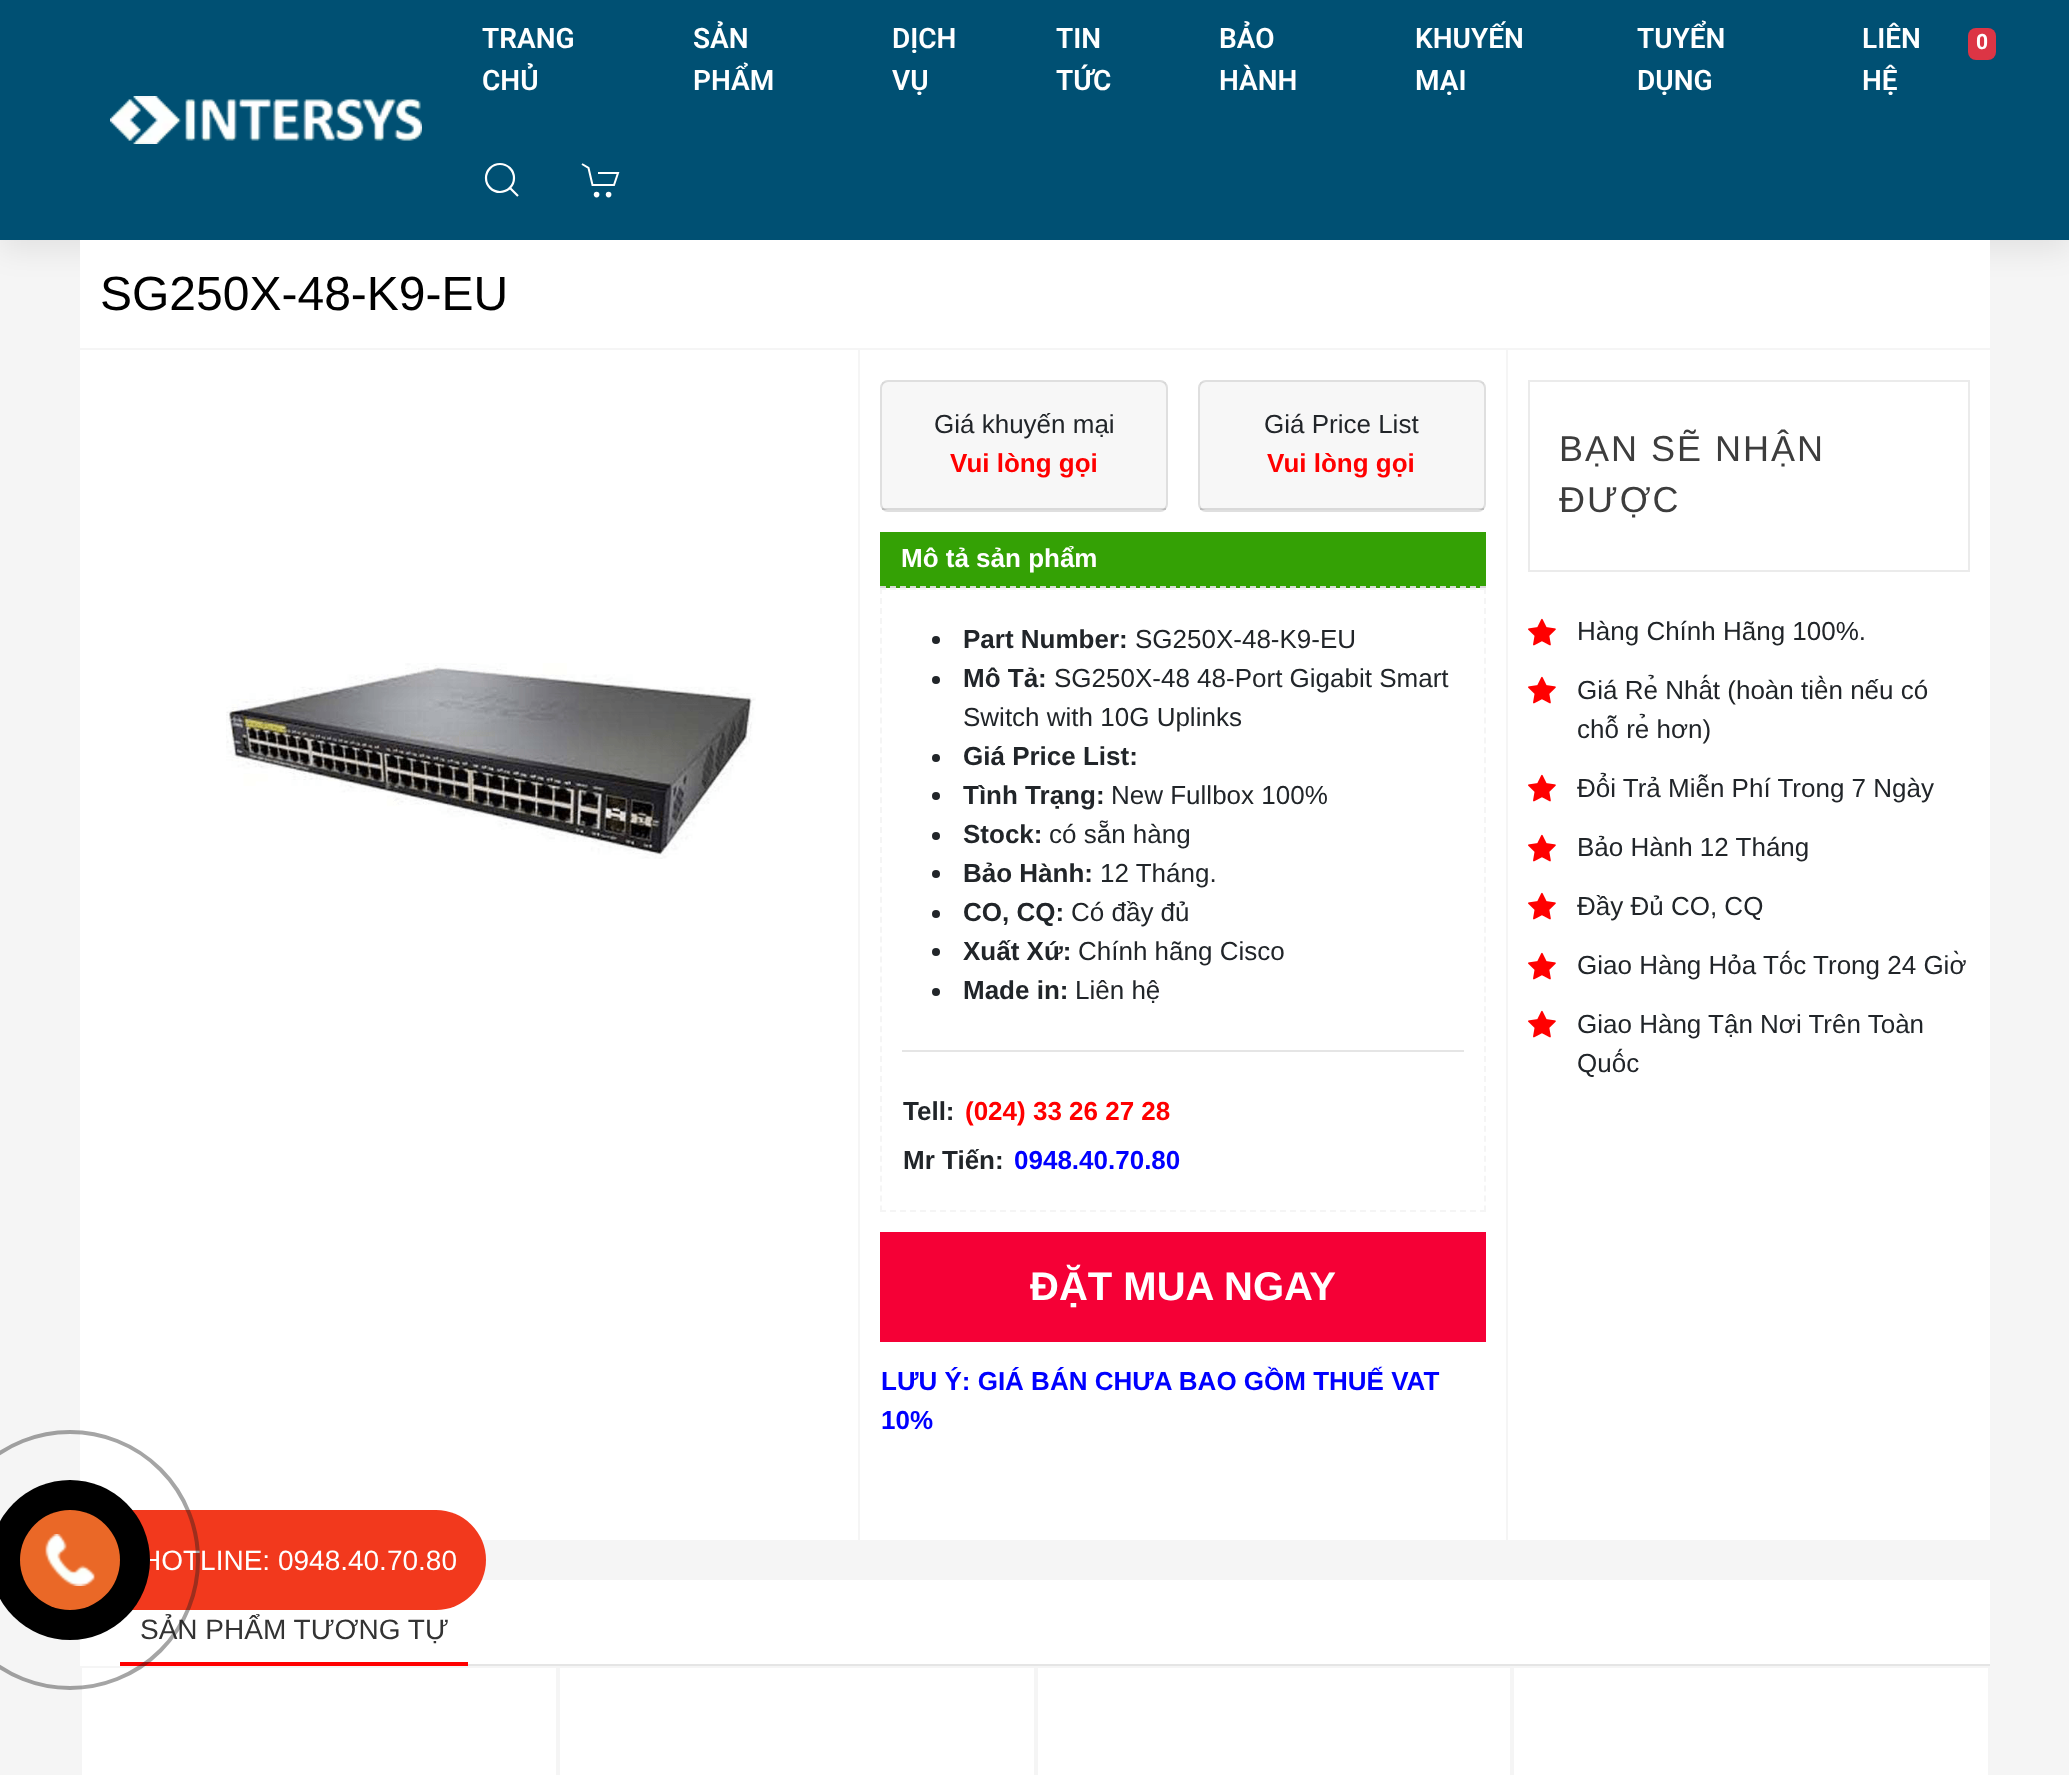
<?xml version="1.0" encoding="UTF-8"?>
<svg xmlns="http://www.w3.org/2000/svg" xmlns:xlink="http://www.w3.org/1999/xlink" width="2069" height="1775">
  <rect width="100%" height="100%" fill="#f5f5f5" />
  <rect y="10" width="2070" height="240" fill="#000000" fill-opacity="0.08" filter="blur(15px)" />
  <rect width="2069" height="240" fill="#005073" />
  <rect x="1968" y="28" width="28" height="32" rx="8" fill="#dc3545" />
  <path d="M 582 164 l 6.5 4 l 4 17 h 21.5 l 4 -12 h -20" fill="none" stroke="#ffffff" stroke-width="2" />
  <circle cx="596.6" cy="194.6" r="2.8" fill="#ffffff" />
  <circle cx="608.6" cy="194.6" r="2.8" fill="#ffffff" />
  <circle cx="500" cy="178" r="14" fill="none" stroke="#ffffff" stroke-width="2.2" />
  <path d="M 510 188 l 8 8 z" fill="none" stroke="#ffffff" stroke-width="2.2" />
  <image x="110" y="96" width="312" height="48" xlink:href="image1.png" />
  <rect x="80" y="240" width="1910" height="108" fill="#ffffff" />
  <rect x="80" y="350" width="778" height="1190" fill="#ffffff" />
  <image x="226" y="663" width="530" height="196" xlink:href="image2.png" />
  <rect x="860" y="350" width="646" height="1190" fill="#ffffff" />
  <rect x="881" y="381" width="286" height="130" rx="7" fill="none" stroke="#dfdfdf" stroke-width="2" />
  <rect x="882" y="382" width="284" height="128" fill="#000000" fill-opacity="0.03" />
  <rect x="882" y="508" width="284" height="2" fill="#000000" fill-opacity="0.12" />
  <rect x="1199" y="381" width="286" height="130" rx="7" fill="none" stroke="#dfdfdf" stroke-width="2" />
  <rect x="1200" y="382" width="284" height="128" fill="#000000" fill-opacity="0.03" />
  <rect x="1200" y="508" width="284" height="2" fill="#000000" fill-opacity="0.12" />
  <rect x="880" y="532" width="606" height="56" fill="#34a105" />
  <path d="M 880 587 h 606" fill="none" stroke="#d7d7d7" stroke-width="2" stroke-dasharray="6 4" />
  <path d="M 880 589 h 606" fill="none" stroke="#f5f5f5" stroke-width="2" stroke-dasharray="6 4" />
  <path d="M 1485 588 v 624" fill="none" stroke="#f5f5f5" stroke-width="2" stroke-dasharray="6 3.96" />
  <path d="M 880 1211 h 606" fill="none" stroke="#f5f5f5" stroke-width="2" stroke-dasharray="6 4" />
  <path d="M 881 588 v 624" fill="none" stroke="#f5f5f5" stroke-width="2" stroke-dasharray="6 3.96" />
  <circle cx="936" cy="640" r="4" fill="#212529" />
  <circle cx="936" cy="680" r="4" fill="#212529" />
  <circle cx="936" cy="758" r="4" fill="#212529" />
  <circle cx="936" cy="796" r="4" fill="#212529" />
  <circle cx="936" cy="836" r="4" fill="#212529" />
  <circle cx="936" cy="874" r="4" fill="#212529" />
  <circle cx="936" cy="914" r="4" fill="#212529" />
  <circle cx="936" cy="952" r="4" fill="#212529" />
  <circle cx="936" cy="992" r="4" fill="#212529" />
  <rect x="902" y="1050" width="562" height="2" fill="#e5e5e5" />
  <rect x="880" y="1232" width="606" height="110" fill="#f50036" />
  <rect x="1508" y="350" width="482" height="1190" fill="#ffffff" />
  <rect x="1529" y="381" width="440" height="190" fill="none" stroke="#ebebeb" stroke-width="2" />
  <image x="1528" y="618" width="28" height="28" xlink:href="image3.png" />
  <image x="1528" y="676" width="28" height="28" xlink:href="image3.png" />
  <image x="1528" y="774" width="28" height="28" xlink:href="image3.png" />
  <image x="1528" y="834" width="28" height="28" xlink:href="image3.png" />
  <image x="1528" y="892" width="28" height="28" xlink:href="image3.png" />
  <image x="1528" y="952" width="28" height="28" xlink:href="image3.png" />
  <image x="1528" y="1010" width="28" height="28" xlink:href="image3.png" />
  <rect x="80" y="1580" width="1910" height="86" fill="#ffffff" />
  <rect x="120" y="1662" width="348" height="4" fill="#ff0000" />
  <rect x="468" y="1664" width="1522" height="2" fill="#e5e5e5" />
  <rect x="82" y="1668" width="1906" height="107" fill="#ffffff" />
  <rect x="81" y="1667" width="476" height="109" fill="none" stroke="#f5f5f5" stroke-width="2" />
  <rect x="559" y="1667" width="476" height="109" fill="none" stroke="#f5f5f5" stroke-width="2" />
  <rect x="1037" y="1667" width="474" height="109" fill="none" stroke="#f5f5f5" stroke-width="2" />
  <rect x="1513" y="1667" width="476" height="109" fill="none" stroke="#f5f5f5" stroke-width="2" />
  <rect x="20" y="1510" width="466" height="100" rx="50" fill="#f2391d" />
  <text x="482" y="48" style="font-family: Roboto; font-size: 28px; font-weight: 600; fill: #ffffff">TRANG</text>
  <text x="482" y="90" style="font-family: Roboto; font-size: 28px; font-weight: 600; fill: #ffffff">CHỦ</text>
  <text x="693" y="48" style="font-family: Roboto; font-size: 28px; font-weight: 600; fill: #ffffff">SẢN</text>
  <text x="693" y="90" style="font-family: Roboto; font-size: 28px; font-weight: 600; fill: #ffffff">PHẨM</text>
  <text x="892" y="48" style="font-family: Roboto; font-size: 28px; font-weight: 600; fill: #ffffff">DỊCH</text>
  <text x="892" y="90" style="font-family: Roboto; font-size: 28px; font-weight: 600; fill: #ffffff">VỤ</text>
  <text x="1056" y="48" style="font-family: Roboto; font-size: 28px; font-weight: 600; fill: #ffffff">TIN</text>
  <text x="1056" y="90" style="font-family: Roboto; font-size: 28px; font-weight: 600; fill: #ffffff">TỨC</text>
  <text x="1219" y="48" style="font-family: Roboto; font-size: 28px; font-weight: 600; fill: #ffffff">BẢO</text>
  <text x="1219" y="90" style="font-family: Roboto; font-size: 28px; font-weight: 600; fill: #ffffff">HÀNH</text>
  <text x="1415" y="48" style="font-family: Roboto; font-size: 28px; font-weight: 600; fill: #ffffff">KHUYẾN</text>
  <text x="1415" y="90" style="font-family: Roboto; font-size: 28px; font-weight: 600; fill: #ffffff">MẠI</text>
  <text x="1637" y="48" style="font-family: Roboto; font-size: 28px; font-weight: 600; fill: #ffffff">TUYỂN</text>
  <text x="1637" y="90" style="font-family: Roboto; font-size: 28px; font-weight: 600; fill: #ffffff">DỤNG</text>
  <text x="1862" y="48" style="font-family: Roboto; font-size: 28px; font-weight: 600; fill: #ffffff">LIÊN</text>
  <text x="1862" y="90" style="font-family: Roboto; font-size: 28px; font-weight: 600; fill: #ffffff">HỆ</text>
  <text x="1976" y="49" style="font-family: Roboto; font-size: 21px; font-weight: bold; fill: #ffffff">0</text>
  <text x="100" y="310" style="font-family: Liberation Sans; font-size: 48px; fill: #000000">SG250X-48-K9-EU</text>
  <text x="934" y="433" style="font-family: Liberation Sans; font-size: 26px; fill: #212529">Giá khuyến mại</text>
  <text x="950" y="472" style="font-family: Liberation Sans; font-size: 26px; font-weight: bold; fill: #ff0000">Vui lòng gọi</text>
  <text x="1264" y="433" style="font-family: Liberation Sans; font-size: 26px; fill: #212529">Giá Price List</text>
  <text x="1267" y="472" style="font-family: Liberation Sans; font-size: 26px; font-weight: bold; fill: #ff0000">Vui lòng gọi</text>
  <text x="901" y="567" style="font-family: Liberation Sans; font-size: 26px; font-weight: bold; fill: #ffffff">Mô tả sản phẩm</text>
  <text x="963" y="648" style="font-family: Liberation Sans; font-size: 26px; font-weight: bold; fill: #212529">Part Number:</text>
  <text x="1135" y="648" style="font-family: Liberation Sans; font-size: 26px; fill: #212529">SG250X-48-K9-EU</text>
  <text x="963" y="687" style="font-family: Liberation Sans; font-size: 26px; font-weight: bold; fill: #212529">Mô Tả:</text>
  <text x="1054" y="687" style="font-family: Liberation Sans; font-size: 26px; fill: #212529">SG250X-48 48-Port Gigabit Smart</text>
  <text x="963" y="726" style="font-family: Liberation Sans; font-size: 26px; fill: #212529">Switch with 10G Uplinks</text>
  <text x="963" y="765" style="font-family: Liberation Sans; font-size: 26px; font-weight: bold; fill: #212529">Giá Price List:</text>
  <text x="963" y="804" style="font-family: Liberation Sans; font-size: 26px; font-weight: bold; fill: #212529">Tình Trạng:</text>
  <text x="1111" y="804" style="font-family: Liberation Sans; font-size: 26px; fill: #212529">New Fullbox 100%</text>
  <text x="963" y="843" style="font-family: Liberation Sans; font-size: 26px; font-weight: bold; fill: #212529">Stock:</text>
  <text x="1049" y="843" style="font-family: Liberation Sans; font-size: 26px; fill: #212529">có sẵn hàng</text>
  <text x="963" y="882" style="font-family: Liberation Sans; font-size: 26px; font-weight: bold; fill: #212529">Bảo Hành:</text>
  <text x="1100" y="882" style="font-family: Liberation Sans; font-size: 26px; fill: #212529">12 Tháng.</text>
  <text x="963" y="921" style="font-family: Liberation Sans; font-size: 26px; font-weight: bold; fill: #212529">CO, CQ:</text>
  <text x="1071" y="921" style="font-family: Liberation Sans; font-size: 26px; fill: #212529">Có đầy đủ</text>
  <text x="963" y="960" style="font-family: Liberation Sans; font-size: 26px; font-weight: bold; fill: #212529">Xuất Xứ:</text>
  <text x="1078" y="960" style="font-family: Liberation Sans; font-size: 26px; fill: #212529">Chính hãng Cisco</text>
  <text x="963" y="999" style="font-family: Liberation Sans; font-size: 26px; font-weight: bold; fill: #212529">Made in:</text>
  <text x="1075" y="999" style="font-family: Liberation Sans; font-size: 26px; fill: #212529">Liên hệ</text>
  <text x="903" y="1120" style="font-family: Liberation Sans; font-size: 26px; font-weight: bold; fill: #212529">Tell:</text>
  <text x="965" y="1120" style="font-family: Liberation Sans; font-size: 26px; font-weight: bold; fill: #ff0000">(024) 33 26 27 28</text>
  <text x="903" y="1169" style="font-family: Liberation Sans; font-size: 26px; font-weight: bold; fill: #212529">Mr Tiến:</text>
  <text x="1014" y="1169" style="font-family: Liberation Sans; font-size: 26px; font-weight: bold; fill: #0000ff">0948.40.70.80</text>
  <text x="1030" y="1300" style="font-family: Liberation Sans; font-size: 40px; font-weight: bold; fill: #ffffff">ĐẶT MUA NGAY</text>
  <text x="881" y="1390" style="font-family: Liberation Sans; font-size: 26px; font-weight: bold; fill: #0000ff">LƯU Ý: GIÁ BÁN CHƯA BAO GỒM THUẾ VAT</text>
  <text x="881" y="1429" style="font-family: Liberation Sans; font-size: 26px; font-weight: bold; fill: #0000ff">10%</text>
  <text x="1559" y="461" style="font-family: Liberation Sans; font-size: 36px; letter-spacing: 2px; fill: #3d3d3d">BẠN SẼ NHẬN</text>
  <text x="1559" y="512" style="font-family: Liberation Sans; font-size: 36px; letter-spacing: 2px; fill: #3d3d3d">ĐƯỢC</text>
  <text x="1577" y="640" style="font-family: Liberation Sans; font-size: 26px; fill: #212529">Hàng Chính Hãng 100%.</text>
  <text x="1577" y="699" style="font-family: Liberation Sans; font-size: 26px; fill: #212529">Giá Rẻ Nhất (hoàn tiền nếu có</text>
  <text x="1577" y="738" style="font-family: Liberation Sans; font-size: 26px; fill: #212529">chỗ rẻ hơn)</text>
  <text x="1577" y="797" style="font-family: Liberation Sans; font-size: 26px; fill: #212529">Đổi Trả Miễn Phí Trong 7 Ngày</text>
  <text x="1577" y="856" style="font-family: Liberation Sans; font-size: 26px; fill: #212529">Bảo Hành 12 Tháng</text>
  <text x="1577" y="915" style="font-family: Liberation Sans; font-size: 26px; fill: #212529">Đầy Đủ CO, CQ</text>
  <text x="1577" y="974" style="font-family: Liberation Sans; font-size: 26px; fill: #212529">Giao Hàng Hỏa Tốc Trong 24 Giờ</text>
  <text x="1577" y="1033" style="font-family: Liberation Sans; font-size: 26px; fill: #212529">Giao Hàng Tận Nơi Trên Toàn</text>
  <text x="1577" y="1072" style="font-family: Liberation Sans; font-size: 26px; fill: #212529">Quốc</text>
  <text x="140" y="1639" style="font-family: Liberation Sans; font-size: 28px; fill: #333333">SẢN PHẨM TƯƠNG TỰ</text>
  <text x="141" y="1570" style="font-family: Liberation Sans; font-size: 28px; fill: #ffffff">HOTLINE: 0948.40.70.80</text>
  <circle cx="70" cy="1560" r="128" fill="none" stroke="#1e1e1e" stroke-opacity="0.4" stroke-width="4" />
  <circle cx="70" cy="1560" r="80" fill="#000000" />
  <circle cx="70" cy="1560" r="50" fill="#ea6827" />
  <image x="45" y="1534" width="50" height="52" xlink:href="image4.png" />
</svg>
